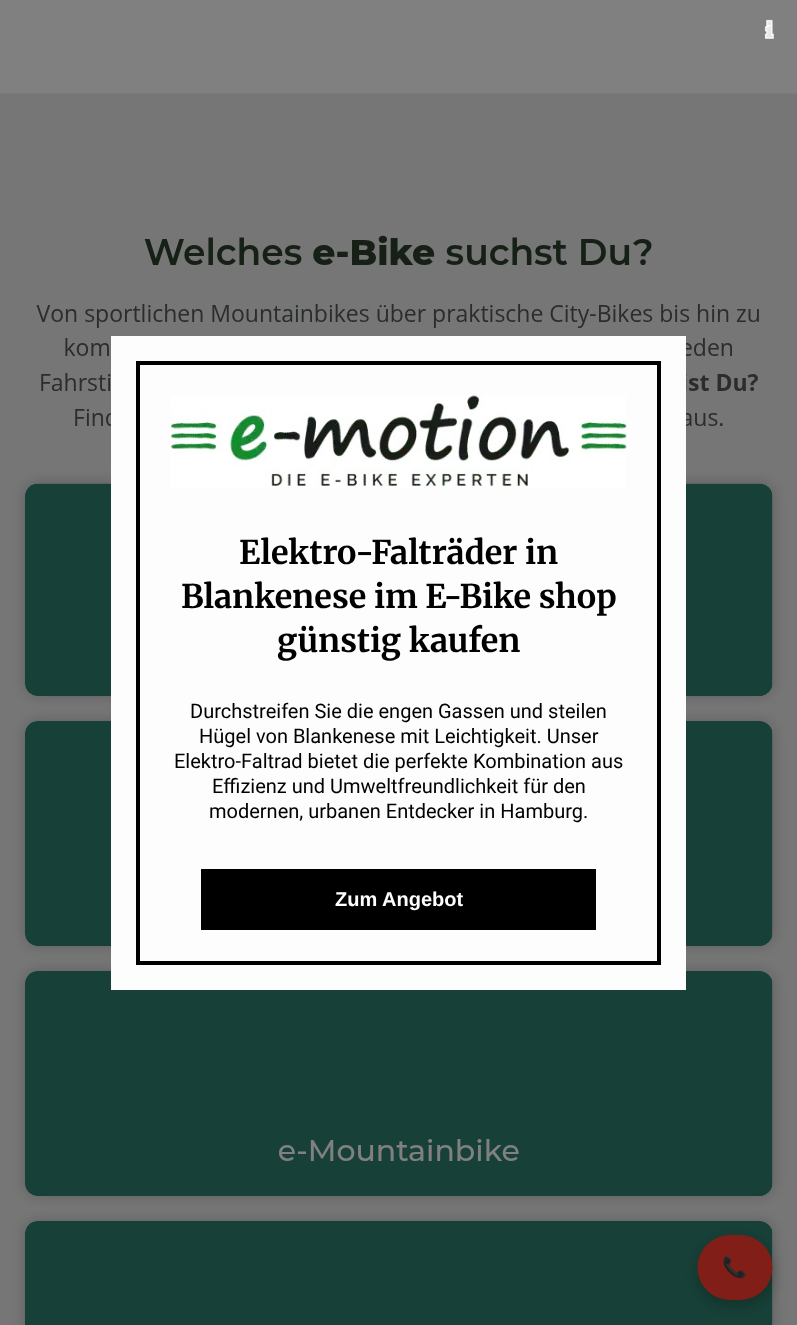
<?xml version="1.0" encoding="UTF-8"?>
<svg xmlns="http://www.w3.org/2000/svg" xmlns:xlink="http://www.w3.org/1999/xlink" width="797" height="1325">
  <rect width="100%" height="100%" fill="#808080" />
  <image x="764" y="19" width="10" height="20" xlink:href="image1.png" />
  <image x="0" y="93" width="797" height="1232" xlink:href="image2.png" />
  <rect x="111" y="336" width="575" height="654" fill="#fdfdfe" />
  <rect x="138" y="363" width="521" height="600" fill="none" stroke="#000000" stroke-width="4" />
  <image x="171" y="395" width="456" height="93" xlink:href="image3.png" />
  <rect x="201" y="869" width="395" height="61" fill="#000000" />
  <text x="239" y="564" style="font-family: Merriweather; font-size: 32.5px; font-weight: bold; fill: #000000">Elektro-Falträder in</text>
  <text x="181" y="608" style="font-family: Merriweather; font-size: 32.5px; font-weight: bold; fill: #000000">Blankenese im E-Bike shop</text>
  <text x="277" y="652" style="font-family: Merriweather; font-size: 32.5px; font-weight: bold; fill: #000000">günstig kaufen</text>
  <text x="190" y="718" style="font-family: Roboto; font-size: 20px; fill: #000000">Durchstreifen Sie die engen Gassen und steilen</text>
  <text x="199" y="743" style="font-family: Roboto; font-size: 20px; fill: #000000">Hügel von Blankenese mit Leichtigkeit. Unser</text>
  <text x="174" y="768" style="font-family: Roboto; font-size: 20px; fill: #000000">Elektro-Faltrad bietet die perfekte Kombination aus</text>
  <text x="212" y="793" style="font-family: Roboto; font-size: 20px; fill: #000000">Effizienz und Umweltfreundlichkeit für den</text>
  <text x="209" y="818" style="font-family: Roboto; font-size: 20px; fill: #000000">modernen, urbanen Entdecker in Hamburg.</text>
  <text x="335" y="906" style="font-family: Liberation Sans; font-size: 20px; font-weight: bold; fill: #ffffff">Zum Angebot</text>
</svg>
